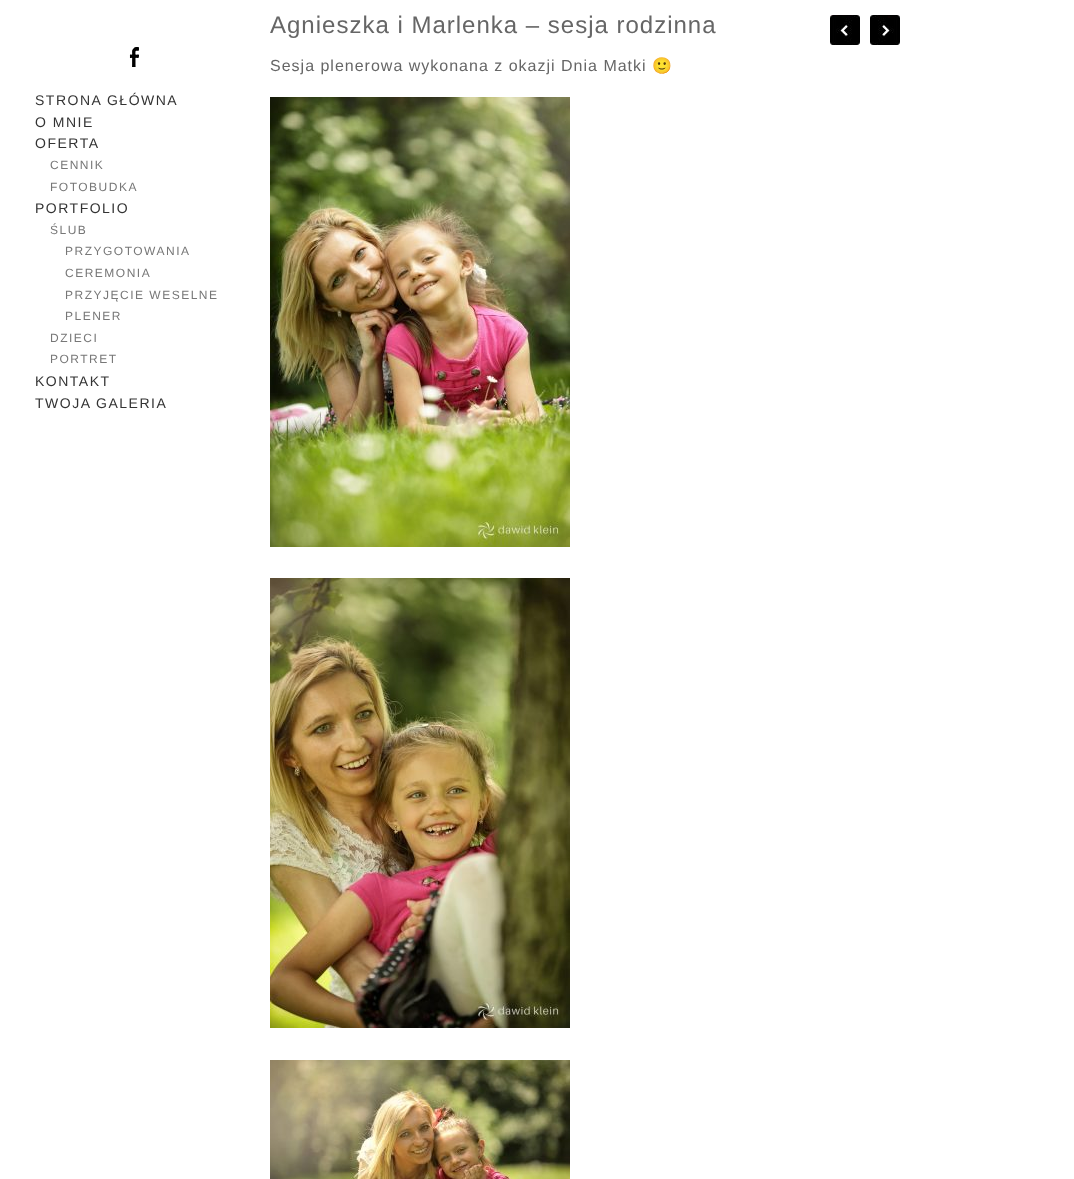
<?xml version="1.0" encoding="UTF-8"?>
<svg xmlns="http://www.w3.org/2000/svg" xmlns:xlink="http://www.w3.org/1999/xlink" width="1074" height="1179">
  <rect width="100%" height="100%" fill="#ffffff" />
  <image x="830" y="15" width="30" height="30" xlink:href="image1.png" />
  <image x="870" y="15" width="30" height="30" xlink:href="image2.png" />
  <image x="270" y="97" width="300" height="450" xlink:href="image3.png" />
  <image x="270" y="578" width="300" height="450" xlink:href="image4.png" />
  <image x="270" y="1060" width="300" height="119" xlink:href="image5.png" />
  <image x="129" y="47" width="10" height="20" xlink:href="image6.png" />
  <text x="270" y="33" style="font-family: Liberation Sans; font-size: 24px; letter-spacing: 1px; fill: #666666">Agnieszka i Marlenka – sesja rodzinna</text>
  <text x="270" y="71" style="font-family: Liberation Sans; font-size: 16px; letter-spacing: 1px; fill: #666666">Sesja plenerowa wykonana z okazji Dnia Matki</text>
  <text x="652" y="71" style="font-family: Noto Color Emoji; font-size: 16px; letter-spacing: 1px; fill: #666666">🙂</text>
  <text x="35" y="105" style="font-family: Liberation Sans; font-size: 14px; letter-spacing: 1.5px; fill: #333333">STRONA GŁÓWNA</text>
  <text x="35" y="127" style="font-family: Liberation Sans; font-size: 14px; letter-spacing: 1.5px; fill: #333333">O MNIE</text>
  <text x="35" y="148" style="font-family: Liberation Sans; font-size: 14px; letter-spacing: 1.5px; fill: #333333">OFERTA</text>
  <text x="50" y="169" style="font-family: Liberation Sans; font-size: 12px; letter-spacing: 1.5px; fill: #777777">CENNIK</text>
  <text x="50" y="191" style="font-family: Liberation Sans; font-size: 12px; letter-spacing: 1.5px; fill: #777777">FOTOBUDKA</text>
  <text x="35" y="213" style="font-family: Liberation Sans; font-size: 14px; letter-spacing: 1.5px; fill: #333333">PORTFOLIO</text>
  <text x="50" y="234" style="font-family: Liberation Sans; font-size: 12px; letter-spacing: 1.5px; fill: #777777">ŚLUB</text>
  <text x="65" y="255" style="font-family: Liberation Sans; font-size: 12px; letter-spacing: 1.5px; fill: #777777">PRZYGOTOWANIA</text>
  <text x="65" y="277" style="font-family: Liberation Sans; font-size: 12px; letter-spacing: 1.5px; fill: #777777">CEREMONIA</text>
  <text x="65" y="299" style="font-family: Liberation Sans; font-size: 12px; letter-spacing: 1.5px; fill: #777777">PRZYJĘCIE WESELNE</text>
  <text x="65" y="320" style="font-family: Liberation Sans; font-size: 12px; letter-spacing: 1.5px; fill: #777777">PLENER</text>
  <text x="50" y="342" style="font-family: Liberation Sans; font-size: 12px; letter-spacing: 1.5px; fill: #777777">DZIECI</text>
  <text x="50" y="363" style="font-family: Liberation Sans; font-size: 12px; letter-spacing: 1.5px; fill: #777777">PORTRET</text>
  <text x="35" y="386" style="font-family: Liberation Sans; font-size: 14px; letter-spacing: 1.5px; fill: #333333">KONTAKT</text>
  <text x="35" y="408" style="font-family: Liberation Sans; font-size: 14px; letter-spacing: 1.5px; fill: #333333">TWOJA GALERIA</text>
</svg>
